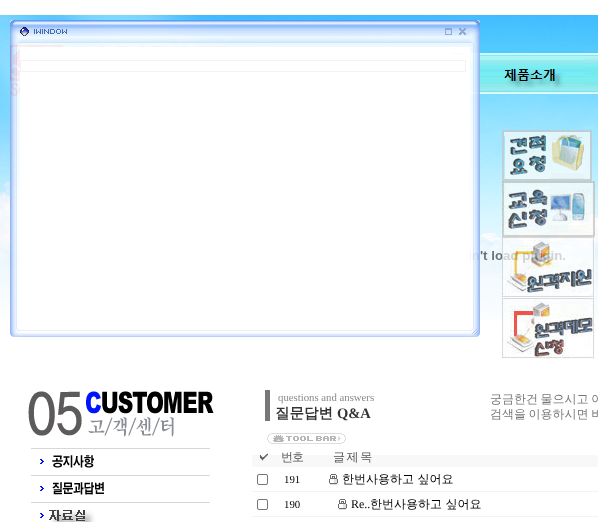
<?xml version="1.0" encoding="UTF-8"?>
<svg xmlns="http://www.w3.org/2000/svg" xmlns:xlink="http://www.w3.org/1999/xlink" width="598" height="522">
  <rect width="100%" height="100%" fill="#ffffff" />
  <image x="0" y="15" width="598" height="305" xlink:href="image17.png" />
  <image x="10" y="45" width="219" height="52" xlink:href="image19.png" />
  <image x="10" y="20" width="10" height="27" xlink:href="image1.png" />
  <image x="277" y="15" width="306" height="30" xlink:href="image18.png" />
  <image x="375" y="92" width="223" height="33" xlink:href="image21.png" />
  <image x="375" y="45" width="102" height="49" xlink:href="image22.png" />
  <image x="20" y="20" width="450" height="27" xlink:href="image2.png" />
  <image x="20" y="27" width="47" height="9" xlink:href="image3.png" />
  <image x="445" y="28" width="7" height="7" xlink:href="image4.png" />
  <image x="459" y="28" width="7" height="7" xlink:href="image5.png" />
  <image x="477" y="45" width="108" height="50" xlink:href="image23.png" />
  <image x="470" y="20" width="10" height="27" xlink:href="image6.png" />
  <image x="0" y="125" width="568" height="121" xlink:href="image25.png" />
  <image x="10" y="47" width="10" height="280" xlink:href="image7.png" />
  <image x="341" y="53" width="34" height="41" xlink:href="image20.png" />
  <image x="428" y="246" width="144" height="18" xlink:href="image26.png" />
  <rect x="20" y="47" width="450" height="273" fill="#ffffff" fill-opacity="0.97" />
  <image x="20" y="47" width="450" height="213" xlink:href="image8.png" />
  <image x="470" y="47" width="10" height="280" xlink:href="image9.png" />
  <image x="10" y="327" width="10" height="10" xlink:href="image10.png" />
  <image x="20" y="330" width="450" height="7" xlink:href="image11.png" />
  <image x="470" y="327" width="10" height="10" xlink:href="image12.png" />
  <image x="502" y="130" width="90" height="51" xlink:href="image13.png" />
  <image x="502" y="181" width="93" height="56" xlink:href="image14.png" />
  <image x="502" y="237" width="93" height="61" xlink:href="image15.png" />
  <image x="502" y="298" width="93" height="61" xlink:href="image16.png" />
  <image x="585" y="45" width="13" height="47" xlink:href="image24.png" />
  <image x="28" y="391" width="186" height="58" xlink:href="image27.png" />
  <image x="31" y="455" width="179" height="21" xlink:href="image28.png" />
  <image x="31" y="482" width="179" height="21" xlink:href="image29.png" />
  <image x="40" y="510" width="55" height="12" xlink:href="image30.png" />
  <rect x="265" y="390" width="5" height="31" fill="#777777" />
  <image x="267" y="433" width="79" height="11" xlink:href="image31.png" />
  <rect x="252" y="455" width="346" height="12" fill="#f8f8f8" />
  <image x="260" y="453" width="8" height="8" xlink:href="image32.png" />
  <rect x="257.5" y="474.5" width="10" height="10" rx="1.5" fill="none" stroke="#767676" />
  <image x="329" y="474" width="9" height="11" xlink:href="image33.png" />
  <rect x="252" y="491" width="346" height="1" fill="#f4f3f1" />
  <rect x="257.5" y="499.5" width="10" height="10" rx="1.5" fill="none" stroke="#767676" />
  <image x="338" y="499" width="9" height="11" xlink:href="image33.png" />
  <rect x="252" y="516" width="346" height="1" fill="#f4f3f1" />
  <text x="278" y="401" style="font-family: Liberation Serif; font-size: 10.75px; fill: #888888">questions and answers</text>
  <text x="275" y="418" style="font-family: WenQuanYi Zen Hei; font-size: 14.5px; font-weight: bold; fill: #333333">질문답변</text>
  <text x="337" y="418" style="font-family: Liberation Serif; font-size: 14.5px; font-weight: bold; fill: #333333">Q&amp;A</text>
  <text x="490" y="403" word-spacing="-1" style="font-family: WenQuanYi Zen Hei; font-size: 12px; font-weight: 500; fill: #777777">궁금한건 물으시고 아</text>
  <text x="490" y="418" word-spacing="-1" style="font-family: WenQuanYi Zen Hei; font-size: 12px; font-weight: 500; fill: #777777">검색을 이용하시면 비</text>
  <text x="281" y="461" style="font-family: WenQuanYi Zen Hei; font-size: 12px; font-weight: 500; letter-spacing: -1px; fill: #555555">번호</text>
  <text x="333" y="461" style="font-family: WenQuanYi Zen Hei; font-size: 12px; font-weight: 500; letter-spacing: -1px; fill: #555555">글 제 목</text>
  <text x="284" y="483" style="font-family: Liberation Serif; font-size: 10.75px; fill: #000000">191</text>
  <text x="342" y="483" style="font-family: WenQuanYi Zen Hei; font-size: 12px; font-weight: 500; fill: #000000">한번사용하고 싶어요</text>
  <text x="284" y="508" style="font-family: Liberation Serif; font-size: 10.75px; fill: #000000">190</text>
  <text x="351" y="508" style="font-family: Liberation Serif; font-size: 12px; fill: #000000">Re..</text>
  <text x="370" y="508" style="font-family: WenQuanYi Zen Hei; font-size: 12px; font-weight: 500; fill: #000000">한번사용하고 싶어요</text>
</svg>
